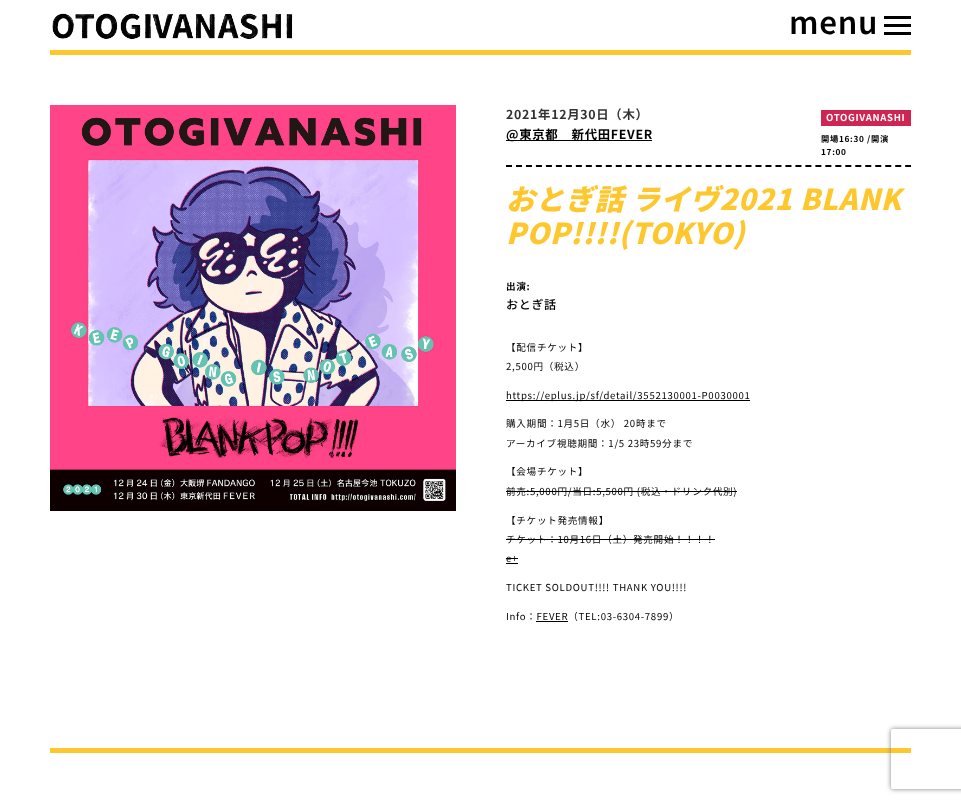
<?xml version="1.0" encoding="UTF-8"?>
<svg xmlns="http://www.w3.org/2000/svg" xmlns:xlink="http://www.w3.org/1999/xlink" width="961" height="803">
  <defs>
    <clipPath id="clip1"><path d="M 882 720 h 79 v 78 h -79 z m 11 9 h 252 c 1 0 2 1 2 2 v 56 c 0 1 -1 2 -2 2 h -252 c -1 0 -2 -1 -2 -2 v -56 c 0 -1 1 -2 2 -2 z" clip-rule="evenodd" /></clipPath>
  </defs>
  <rect width="100%" height="100%" fill="#ffffff" />
  <image x="52" y="13" width="241" height="27" xlink:href="image1.png" />
  <rect x="884" y="16" width="27" height="3" fill="#000000" />
  <rect x="884" y="24" width="27" height="3" fill="#000000" />
  <rect x="884" y="32" width="27" height="3" fill="#000000" />
  <rect x="50" y="50" width="861" height="5" fill="#fec72e" />
  <rect x="50" y="748" width="861" height="5" fill="#fec72e" />
  <image x="50" y="105" width="406" height="406" xlink:href="image2.png" />
  <path d="M 506 166 h 405" fill="none" stroke="#000000" stroke-width="2" stroke-dasharray="6 3.98" />
  <rect x="506" y="140" width="146" height="1" fill="#000000" />
  <rect x="821" y="110" width="90" height="16" fill="#ce2552" />
  <rect x="506" y="400" width="244" height="1" fill="#000000" />
  <rect x="506" y="491" width="231" height="1" fill="#000000" />
  <rect x="506" y="539" width="209" height="1" fill="#000000" />
  <rect x="506" y="563" width="12" height="1" fill="#000000" />
  <rect x="506" y="558" width="12" height="1" fill="#000000" />
  <rect x="536" y="621" width="32" height="1" fill="#000000" />
  <g clip-path="url(#clip1)">
    <rect x="891" y="729" width="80" height="60" rx="2" fill="#808080" filter="blur(2.5px)" />
  </g>
  <text x="789" y="34" style="font-family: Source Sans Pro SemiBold; font-size: 35px; font-weight: 600; letter-spacing: 0.7px; fill: #000000">menu</text>
  <text x="506" y="119" style="font-family: Noto Sans JP; font-size: 12.4px; font-weight: bold; letter-spacing: 0.7px; fill: #323232">2021年12月30日（木）</text>
  <text x="506" y="139" style="font-family: Noto Sans JP; font-size: 12.4px; font-weight: bold; letter-spacing: 0.7px; fill: #000000">@東京都　新代田FEVER</text>
  <text x="826" y="121" style="font-family: Noto Sans JP; font-size: 9.5px; font-weight: bold; letter-spacing: 0.7px; fill: #ffffff">OTOGIVANASHI</text>
  <text x="821" y="142" style="font-family: Noto Sans JP; font-size: 8.25px; font-weight: bold; letter-spacing: 0.7px; fill: #000000">開場16:30 /開演</text>
  <text x="821" y="155" style="font-family: Noto Sans JP; font-size: 8.25px; font-weight: bold; letter-spacing: 0.7px; fill: #000000">17:00</text>
  <text x="506" y="210" style="font-family: Noto Sans JP; font-size: 28.8px; font-weight: 900; font-style: italic; letter-spacing: 0.7px; fill: #fec72e">おとぎ話 ライヴ2021 BLANK</text>
  <text x="506" y="244" style="font-family: Noto Sans JP; font-size: 28.8px; font-weight: 900; font-style: italic; letter-spacing: 0.7px; fill: #fec72e">POP!!!!(TOKYO)</text>
  <text x="506" y="290" style="font-family: Noto Sans JP; font-size: 9.6px; font-weight: bold; letter-spacing: 0.7px; fill: #000000">出演:</text>
  <text x="506" y="309" style="font-family: Noto Sans JP; font-size: 12px; font-weight: 500; letter-spacing: 0.7px; fill: #000000">おとぎ話</text>
  <text x="506" y="351" style="font-family: Noto Sans JP; font-size: 9.6px; letter-spacing: 0.7px; fill: #000000">【配信チケット】</text>
  <text x="506" y="370" style="font-family: Noto Sans JP; font-size: 9.6px; letter-spacing: 0.7px; fill: #000000">2,500円（税込）</text>
  <text x="506" y="399" style="font-family: Noto Sans JP; font-size: 9.6px; letter-spacing: 0.7px; fill: #000000">https://eplus.jp/sf/detail/3552130001-P0030001</text>
  <text x="506" y="427" style="font-family: Noto Sans JP; font-size: 9.6px; letter-spacing: 0.7px; fill: #000000">購入期間：1月5日（水） 20時まで</text>
  <text x="506" y="447" style="font-family: Noto Sans JP; font-size: 9.6px; letter-spacing: 0.7px; fill: #000000">アーカイブ視聴期間：1/5 23時59分まで</text>
  <text x="506" y="475" style="font-family: Noto Sans JP; font-size: 9.6px; letter-spacing: 0.7px; fill: #000000">【会場チケット】</text>
  <text x="506" y="495" style="font-family: Noto Sans JP; font-size: 9.6px; letter-spacing: 0.7px; fill: #000000">前売:5,000円/当日:5,500円 (税込・ドリンク代別)</text>
  <text x="506" y="524" style="font-family: Noto Sans JP; font-size: 9.6px; letter-spacing: 0.7px; fill: #000000">【チケット発売情報】</text>
  <text x="506" y="543" style="font-family: Noto Sans JP; font-size: 9.6px; letter-spacing: 0.7px; fill: #000000">チケット：10月16日（土）発売開始！！！！</text>
  <text x="506" y="562" style="font-family: Noto Sans JP; font-size: 9.6px; letter-spacing: 0.7px; fill: #000000">e+</text>
  <text x="506" y="591" style="font-family: Noto Sans JP; font-size: 9.6px; letter-spacing: 0.7px; fill: #000000">TICKET SOLDOUT!!!! THANK YOU!!!!</text>
  <text x="506" y="620" style="font-family: Noto Sans JP; font-size: 9.6px; letter-spacing: 0.7px; fill: #000000">Info：FEVER（TEL:03-6304-7899）</text>
</svg>
